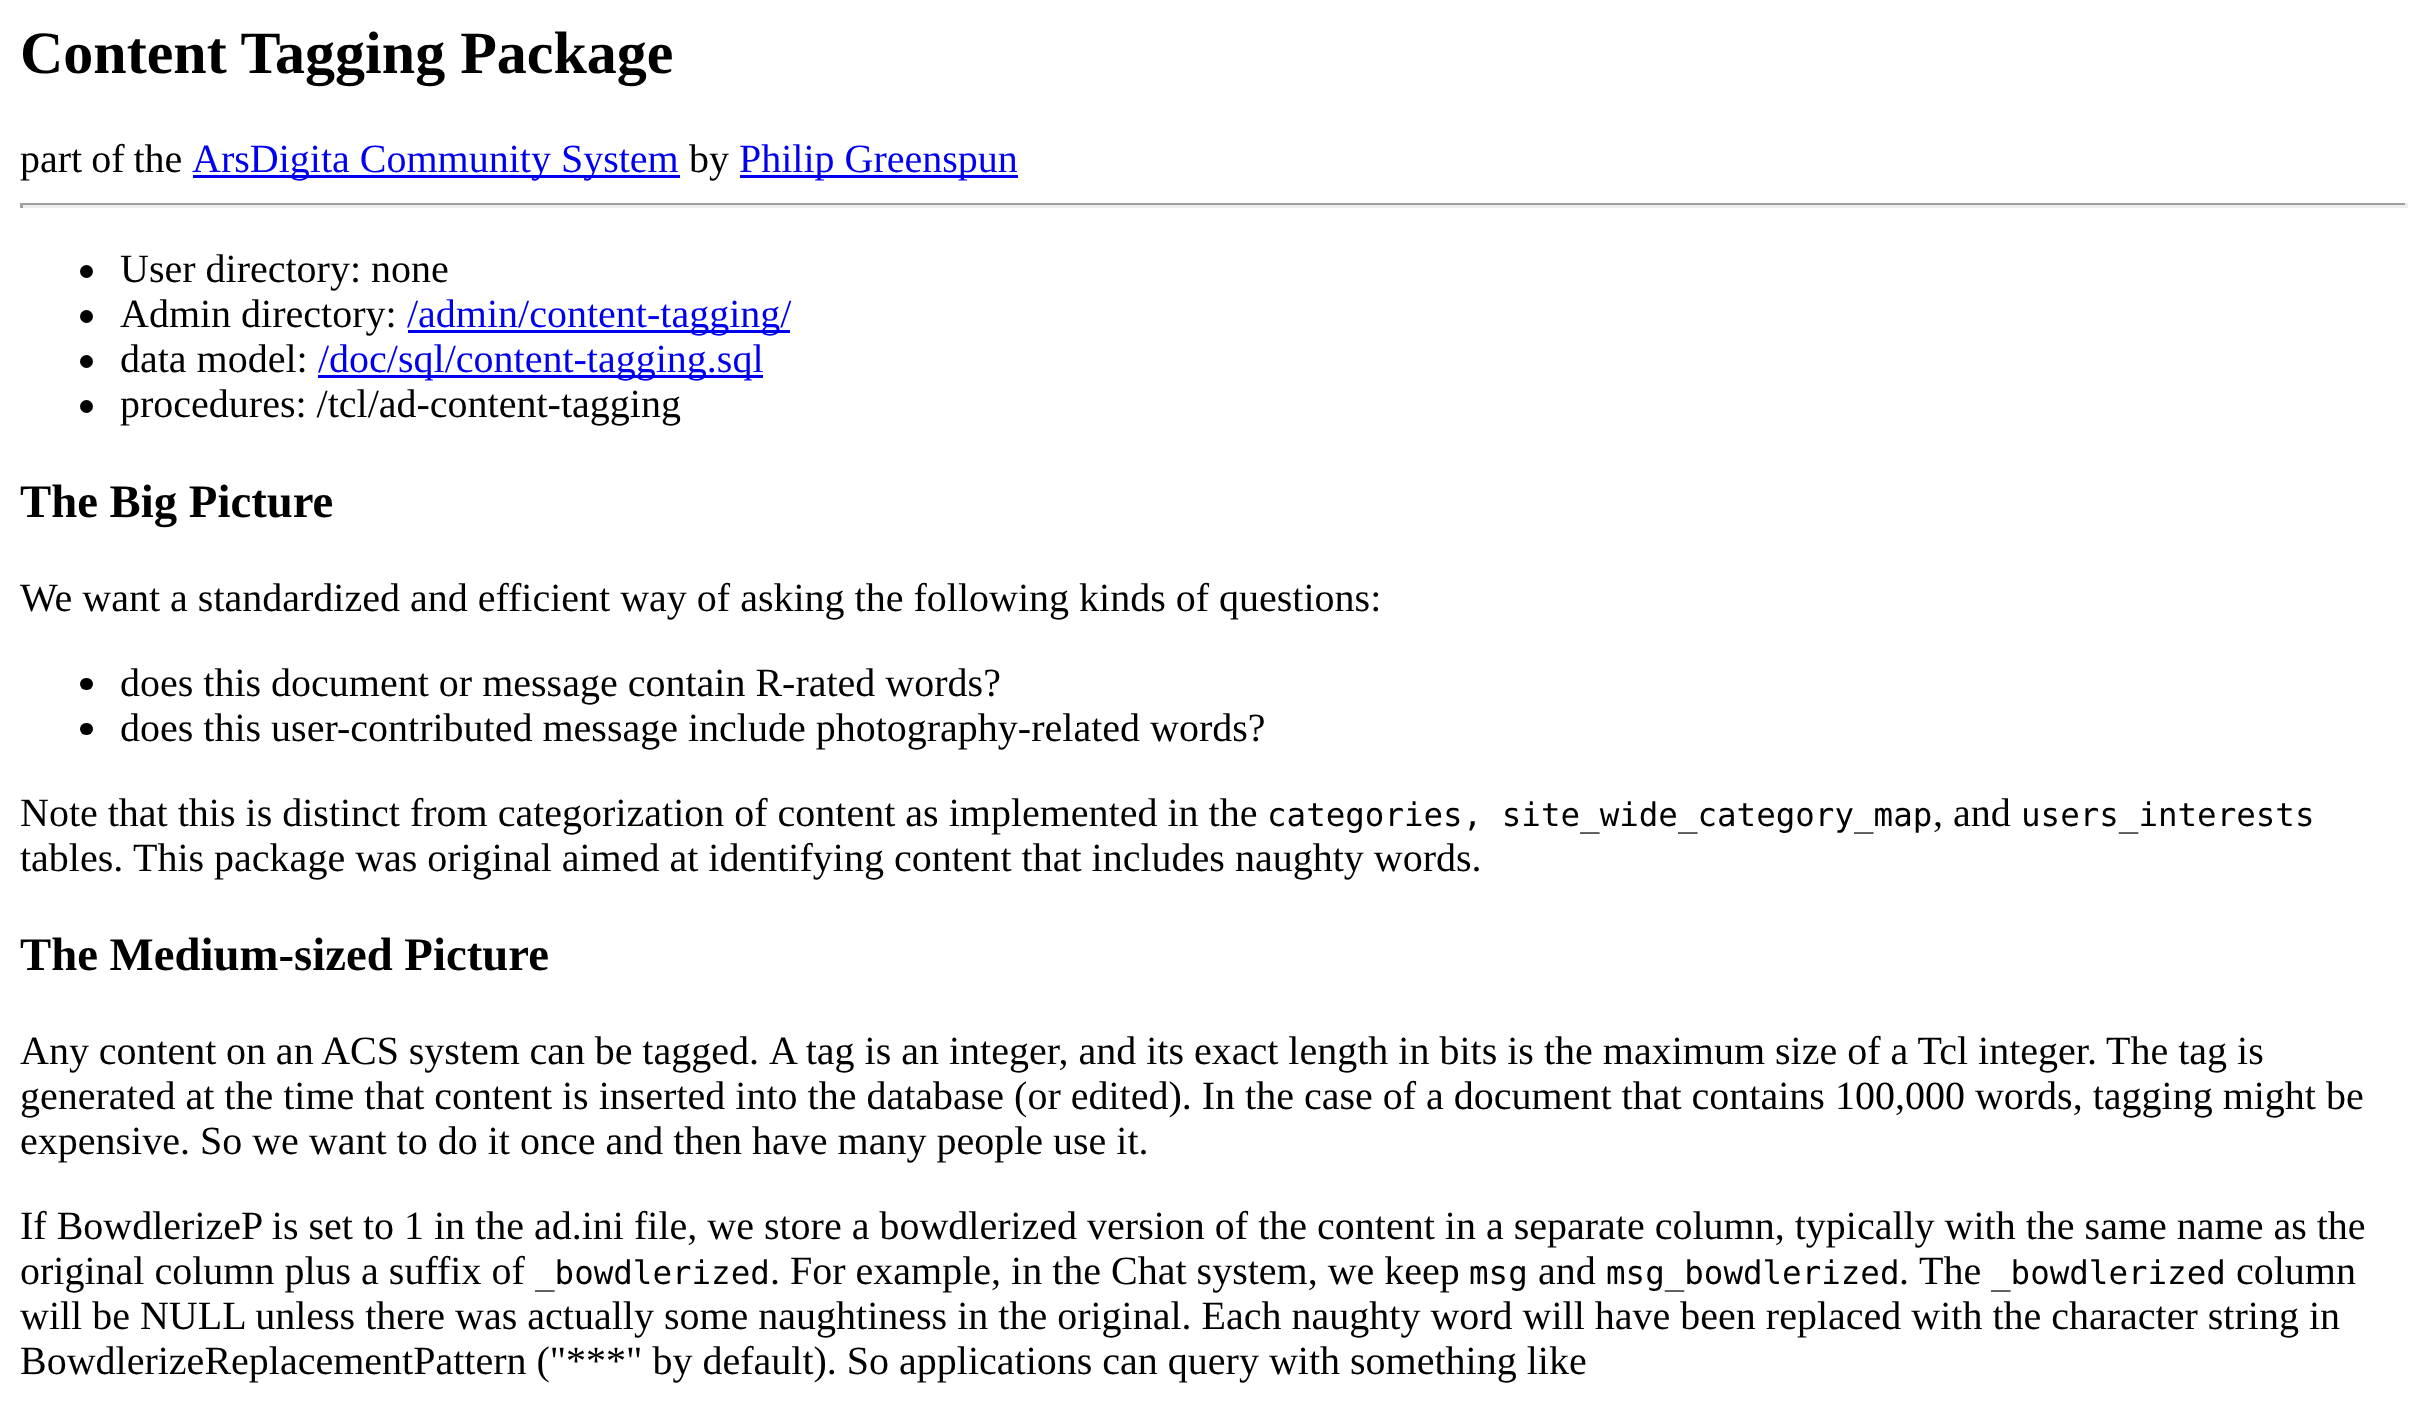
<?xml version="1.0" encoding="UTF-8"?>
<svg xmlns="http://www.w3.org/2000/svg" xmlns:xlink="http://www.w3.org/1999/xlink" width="2427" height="1422">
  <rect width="100%" height="100%" fill="#ffffff" />
  <rect x="193" y="175" width="487" height="3" fill="#0000ee" />
  <rect x="740" y="175" width="278" height="3" fill="#0000ee" />
  <rect x="20" y="203" width="2388" height="2" fill="#9f9f9f" />
  <rect x="2405" y="203" width="3" height="5" fill="#eeeeee" />
  <rect x="20" y="205" width="2388" height="3" fill="#eeeeee" />
  <rect x="20" y="203" width="3" height="5" fill="#9f9f9f" />
  <circle cx="86.5" cy="271.5" r="6.5" fill="#000000" />
  <circle cx="86.5" cy="316.5" r="6.5" fill="#000000" />
  <rect x="408" y="330" width="382" height="3" fill="#0000ee" />
  <circle cx="86.5" cy="361.5" r="6.5" fill="#000000" />
  <rect x="318" y="375" width="445" height="3" fill="#0000ee" />
  <circle cx="86.5" cy="406.5" r="6.5" fill="#000000" />
  <rect x="80" y="678" width="13" height="12" rx="6" fill="#000000" />
  <rect x="80" y="723" width="13" height="12" rx="6" fill="#000000" />
  <text x="20" y="73" style="font-family: Liberation Serif; font-size: 60px; font-weight: bold; fill: #000000">Content Tagging Package</text>
  <text x="20" y="172" word-spacing="-1" style="font-family: Liberation Serif; font-size: 40px; fill: #000000">part of the</text>
  <text x="192" y="172" style="font-family: Liberation Serif; font-size: 40px; fill: #0000ee">ArsDigita Community System</text>
  <text x="689" y="172" style="font-family: Liberation Serif; font-size: 40px; fill: #000000">by</text>
  <text x="739" y="172" style="font-family: Liberation Serif; font-size: 40px; fill: #0000ee">Philip Greenspun</text>
  <text x="120" y="282" style="font-family: Liberation Serif; font-size: 40px; fill: #000000">User directory: none</text>
  <text x="120" y="327" style="font-family: Liberation Serif; font-size: 40px; fill: #000000">Admin directory:</text>
  <text x="407" y="327" style="font-family: Liberation Serif; font-size: 40px; fill: #0000ee">/admin/content-tagging/</text>
  <text x="120" y="372" style="font-family: Liberation Serif; font-size: 40px; fill: #000000">data model:</text>
  <text x="318" y="372" style="font-family: Liberation Serif; font-size: 40px; fill: #0000ee">/doc/sql/content-tagging.sql</text>
  <text x="120" y="417" style="font-family: Liberation Serif; font-size: 40px; fill: #000000">procedures: /tcl/ad-content-tagging</text>
  <text x="20" y="517" style="font-family: Liberation Serif; font-size: 46.75px; font-weight: bold; fill: #000000">The Big Picture</text>
  <text x="20" y="611" style="font-family: Liberation Serif; font-size: 40px; fill: #000000">We want a standardized and efficient way of asking the following kinds of questions:</text>
  <text x="120" y="696" style="font-family: Liberation Serif; font-size: 40px; fill: #000000">does this document or message contain R-rated words?</text>
  <text x="120" y="741" style="font-family: Liberation Serif; font-size: 40px; fill: #000000">does this user-contributed message include photography-related words?</text>
  <text x="20" y="826" style="font-family: Liberation Serif; font-size: 40px; fill: #000000">Note that this is distinct from categorization of content as implemented in the</text>
  <text x="1267" y="826" style="font-family: DejaVu Sans Mono; font-size: 32.5px; fill: #000000">categories, site_wide_category_map</text>
  <text x="1933" y="826" style="font-family: Liberation Serif; font-size: 40px; fill: #000000">, and</text>
  <text x="2021" y="826" style="font-family: DejaVu Sans Mono; font-size: 32.5px; fill: #000000">users_interests</text>
  <text x="20" y="871" style="font-family: Liberation Serif; font-size: 40px; fill: #000000">tables.</text>
  <text x="133" y="871" style="font-family: Liberation Serif; font-size: 40px; fill: #000000">This package was original aimed at identifying content that includes naughty words.</text>
  <text x="20" y="970" style="font-family: Liberation Serif; font-size: 46.75px; font-weight: bold; fill: #000000">The Medium-sized Picture</text>
  <text x="20" y="1064" word-spacing="-0.25" style="font-family: Liberation Serif; font-size: 40px; fill: #000000">Any content on an ACS system can be tagged.</text>
  <text x="769" y="1064" style="font-family: Liberation Serif; font-size: 40px; fill: #000000">A tag is an integer, and its exact length in bits is the maximum size of a Tcl integer.</text>
  <text x="2106" y="1064" style="font-family: Liberation Serif; font-size: 40px; fill: #000000">The tag is</text>
  <text x="20" y="1109" style="font-family: Liberation Serif; font-size: 40px; fill: #000000">generated at the time that content is inserted into the database (or edited). In the case of a document that contains 100,000 words, tagging might be</text>
  <text x="20" y="1154" style="font-family: Liberation Serif; font-size: 40px; fill: #000000">expensive. So we want to do it once and then have many people use it.</text>
  <text x="20" y="1239" style="font-family: Liberation Serif; font-size: 40px; fill: #000000">If BowdlerizeP is set to 1 in the ad.ini file, we store a bowdlerized version of the content in a separate column, typically with the same name as the</text>
  <text x="20" y="1284" style="font-family: Liberation Serif; font-size: 40px; fill: #000000">original column plus a suffix of</text>
  <text x="535" y="1284" style="font-family: DejaVu Sans Mono; font-size: 32.5px; fill: #000000">_bowdlerized</text>
  <text x="770" y="1284" style="font-family: Liberation Serif; font-size: 40px; fill: #000000">. For example, in the Chat system, we keep</text>
  <text x="1469" y="1284" style="font-family: DejaVu Sans Mono; font-size: 32.5px; fill: #000000">msg</text>
  <text x="1538" y="1284" style="font-family: Liberation Serif; font-size: 40px; fill: #000000">and</text>
  <text x="1606" y="1284" style="font-family: DejaVu Sans Mono; font-size: 32.5px; fill: #000000">msg_bowdlerized</text>
  <text x="1899" y="1284" style="font-family: Liberation Serif; font-size: 40px; fill: #000000">.</text>
  <text x="1919" y="1284" style="font-family: Liberation Serif; font-size: 40px; fill: #000000">The</text>
  <text x="1991" y="1284" style="font-family: DejaVu Sans Mono; font-size: 32.5px; fill: #000000">_bowdlerized</text>
  <text x="2236" y="1284" style="font-family: Liberation Serif; font-size: 40px; fill: #000000">column</text>
  <text x="20" y="1329" style="font-family: Liberation Serif; font-size: 40px; fill: #000000">will be NULL unless there was actually some naughtiness in the original. Each naughty word will have been replaced with the character string in</text>
  <text x="20" y="1374" style="font-family: Liberation Serif; font-size: 40px; fill: #000000">BowdlerizeReplacementPattern ("***" by default). So applications can query with something like</text>
</svg>
